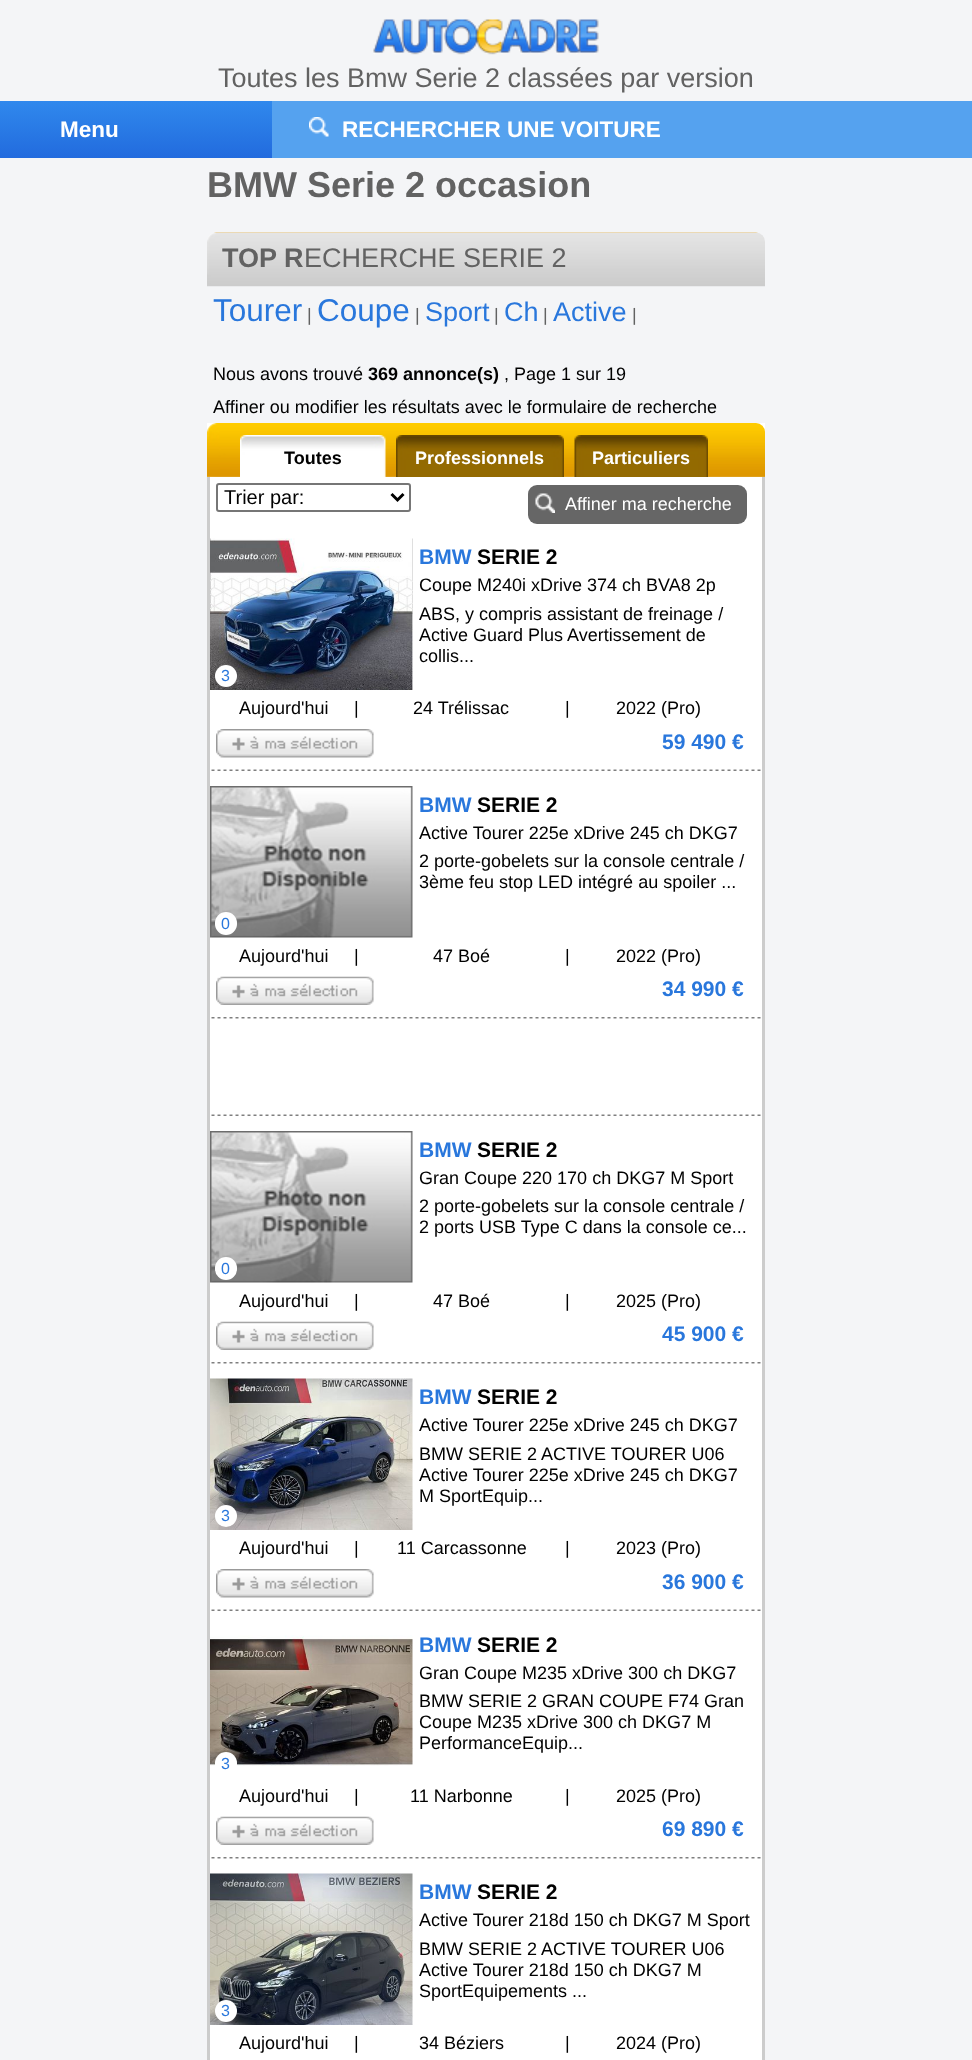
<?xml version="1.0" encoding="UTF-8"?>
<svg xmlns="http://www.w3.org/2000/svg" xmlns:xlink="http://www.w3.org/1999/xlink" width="972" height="2060">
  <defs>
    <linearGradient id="g1" gradientUnits="userSpaceOnUse" x1="136" y1="100" x2="136" y2="158"><stop offset="0" stop-color="#3089ed" /><stop offset="1" stop-color="#226bde" /></linearGradient>
  </defs>
  <rect width="100%" height="100%" fill="#f4f5f7" />
  <image x="373" y="19" width="226" height="36" xlink:href="image1.png" />
  <rect y="101" width="272" height="57" fill="url(#g1)" />
  <rect x="272" y="101" width="700" height="57" fill="#55a2ef" />
  <image x="309" y="117" width="20" height="20" xlink:href="image2.png" />
  <image x="207" y="232" width="558" height="55" xlink:href="image3.png" />
  <rect x="207" y="423" width="558" height="101" fill="#ffffff" />
  <image x="207" y="423" width="558" height="54" xlink:href="image4.png" />
  <image x="240" y="435" width="146" height="42" xlink:href="image5.png" />
  <image x="396" y="435" width="168" height="42" xlink:href="image6.png" />
  <image x="574" y="435" width="134" height="42" xlink:href="image7.png" />
  <rect x="762" y="477" width="3" height="1583" fill="#cccccc" />
  <rect x="207" y="477" width="3" height="1583" fill="#cccccc" />
  <rect x="217" y="484" width="193" height="27" rx="2" fill="none" stroke="#767676" stroke-width="2" />
  <path d="M 391.5 494 l 6 6 l 6 -6" fill="none" stroke="#000000" stroke-width="3" />
  <rect x="528" y="485" width="219" height="39" rx="9" fill="#666666" />
  <image x="535" y="493" width="20" height="20" xlink:href="image8.png" />
  <rect x="210" y="524" width="552" height="1536" fill="#ffffff" />
  <image x="211" y="769" width="550" height="2" xlink:href="image9.png" />
  <image x="210" y="538" width="203" height="152" xlink:href="image10.png" />
  <circle cx="226" cy="676" r="11" fill="#ffffff" />
  <image x="216" y="729" width="158" height="29" xlink:href="image11.png" />
  <image x="211" y="1017" width="550" height="2" xlink:href="image12.png" />
  <image x="210" y="786" width="203" height="152" xlink:href="image13.png" />
  <rect x="215" y="912" width="22" height="23" rx="11" fill="#ffffff" />
  <image x="216" y="976" width="158" height="29" xlink:href="image14.png" />
  <image x="211" y="1114" width="550" height="2" xlink:href="image9.png" />
  <image x="211" y="1362" width="550" height="2" xlink:href="image12.png" />
  <image x="210" y="1131" width="203" height="152" xlink:href="image13.png" />
  <rect x="215" y="1257" width="22" height="23" rx="11" fill="#ffffff" />
  <image x="216" y="1321" width="158" height="29" xlink:href="image14.png" />
  <image x="211" y="1609" width="550" height="2" xlink:href="image9.png" />
  <image x="210" y="1378" width="203" height="152" xlink:href="image15.png" />
  <circle cx="226" cy="1516" r="11" fill="#ffffff" />
  <image x="216" y="1569" width="158" height="29" xlink:href="image11.png" />
  <image x="211" y="1857" width="550" height="2" xlink:href="image12.png" />
  <image x="210" y="1635" width="203" height="131" xlink:href="image16.png" />
  <rect x="215" y="1752" width="22" height="23" rx="11" fill="#ffffff" />
  <image x="216" y="1816" width="158" height="29" xlink:href="image14.png" />
  <image x="210" y="1873" width="203" height="152" xlink:href="image17.png" />
  <circle cx="226" cy="2011" r="11" fill="#ffffff" />
  <text x="218" y="87" style="font-family: Liberation Sans; font-size: 27px; fill: #626262">Toutes les Bmw Serie 2 classées par version</text>
  <text x="60" y="137" style="font-family: Liberation Sans; font-size: 22.5px; font-weight: bold; fill: #ffffff">Menu</text>
  <text x="342" y="137" style="font-family: Liberation Sans; font-size: 22.5px; font-weight: bold; fill: #ffffff">RECHERCHER UNE VOITURE</text>
  <text x="207" y="197" style="font-family: Liberation Sans; font-size: 36px; font-weight: bold; fill: #626262">BMW Serie 2 occasion</text>
  <text x="222" y="267" style="font-family: Liberation Sans; font-size: 27px; font-weight: bold; fill: #626262">TOP R</text>
  <text x="304" y="267" style="font-family: Liberation Sans; font-size: 27px; fill: #626262">ECHERCHE SERIE 2</text>
  <text x="213" y="321" style="font-family: Liberation Sans; font-size: 31.5px; fill: #2977dc">Tourer</text>
  <text x="307" y="321" style="font-family: Liberation Sans; font-size: 18px; fill: #626262">|</text>
  <text x="317" y="321" style="font-family: Liberation Sans; font-size: 31.5px; fill: #2977dc">Coupe</text>
  <text x="415" y="321" style="font-family: Liberation Sans; font-size: 18px; fill: #626262">|</text>
  <text x="425" y="321" style="font-family: Liberation Sans; font-size: 27px; fill: #2977dc">Sport</text>
  <text x="494" y="321" style="font-family: Liberation Sans; font-size: 18px; fill: #626262">|</text>
  <text x="504" y="321" style="font-family: Liberation Sans; font-size: 27px; fill: #2977dc">Ch</text>
  <text x="543" y="321" style="font-family: Liberation Sans; font-size: 18px; fill: #626262">|</text>
  <text x="553" y="321" style="font-family: Liberation Sans; font-size: 27px; fill: #2977dc">Active</text>
  <text x="632" y="321" style="font-family: Liberation Sans; font-size: 18px; fill: #626262">|</text>
  <text x="213" y="380" style="font-family: Liberation Sans; font-size: 18px; fill: #010101">Nous avons trouvé</text>
  <text x="368" y="380" style="font-family: Liberation Sans; font-size: 18px; font-weight: bold; fill: #010101">369 annonce(s)</text>
  <text x="504" y="380" style="font-family: Liberation Sans; font-size: 18px; fill: #010101">, Page 1 sur 19</text>
  <text x="213" y="413" style="font-family: Liberation Sans; font-size: 18px; fill: #010101">Affiner ou modifier les résultats avec le formulaire de recherche</text>
  <text x="284" y="464" style="font-family: Liberation Sans; font-size: 18px; font-weight: bold; fill: #010101">Toutes</text>
  <text x="415" y="464" style="font-family: Liberation Sans; font-size: 18px; font-weight: bold; fill: #ffffff">Professionnels</text>
  <text x="592" y="464" style="font-family: Liberation Sans; font-size: 18px; font-weight: bold; fill: #ffffff">Particuliers</text>
  <text x="224" y="504" style="font-family: Liberation Sans; font-size: 20px; fill: #010101">Trier par:</text>
  <text x="565" y="510" style="font-family: Liberation Sans; font-size: 18px; fill: #ffffff">Affiner ma recherche</text>
  <text x="419" y="564" style="font-family: Liberation Sans; font-size: 21px; font-weight: bold; fill: #2977dc">BMW</text>
  <text x="477" y="564" style="font-family: Liberation Sans; font-size: 21px; font-weight: bold; fill: #010101">SERIE 2</text>
  <text x="419" y="591" style="font-family: Liberation Sans; font-size: 18px; fill: #010101">Coupe M240i xDrive 374 ch BVA8 2p</text>
  <text x="419" y="620" style="font-family: Liberation Sans; font-size: 18px; fill: #010101">ABS, y compris assistant de freinage /</text>
  <text x="419" y="641" style="font-family: Liberation Sans; font-size: 18px; fill: #010101">Active Guard Plus Avertissement de</text>
  <text x="419" y="662" style="font-family: Liberation Sans; font-size: 18px; fill: #010101">collis...</text>
  <text x="221" y="681" style="font-family: Liberation Sans; font-size: 16px; fill: #2977dc">3</text>
  <text x="239" y="714" style="font-family: Liberation Sans; font-size: 18px; fill: #010101">Aujourd'hui</text>
  <text x="354" y="714" style="font-family: Liberation Sans; font-size: 18px; fill: #010101">|</text>
  <text x="413" y="714" style="font-family: Liberation Sans; font-size: 18px; fill: #010101">24 Trélissac</text>
  <text x="565" y="714" style="font-family: Liberation Sans; font-size: 18px; fill: #010101">|</text>
  <text x="616" y="714" style="font-family: Liberation Sans; font-size: 18px; fill: #010101">2022 (Pro)</text>
  <text x="662" y="749" style="font-family: Liberation Sans; font-size: 21px; font-weight: bold; fill: #2977dc">59 490 €</text>
  <text x="419" y="812" style="font-family: Liberation Sans; font-size: 21px; font-weight: bold; fill: #2977dc">BMW</text>
  <text x="477" y="812" style="font-family: Liberation Sans; font-size: 21px; font-weight: bold; fill: #010101">SERIE 2</text>
  <text x="419" y="839" style="font-family: Liberation Sans; font-size: 18px; fill: #010101">Active Tourer 225e xDrive 245 ch DKG7</text>
  <text x="419" y="867" style="font-family: Liberation Sans; font-size: 18px; fill: #010101">2 porte-gobelets sur la console centrale /</text>
  <text x="419" y="888" style="font-family: Liberation Sans; font-size: 18px; fill: #010101">3ème feu stop LED intégré au spoiler ...</text>
  <text x="221" y="929" style="font-family: Liberation Sans; font-size: 16px; fill: #2977dc">0</text>
  <text x="239" y="962" style="font-family: Liberation Sans; font-size: 18px; fill: #010101">Aujourd'hui</text>
  <text x="354" y="962" style="font-family: Liberation Sans; font-size: 18px; fill: #010101">|</text>
  <text x="433" y="962" style="font-family: Liberation Sans; font-size: 18px; fill: #010101">47 Boé</text>
  <text x="565" y="962" style="font-family: Liberation Sans; font-size: 18px; fill: #010101">|</text>
  <text x="616" y="962" style="font-family: Liberation Sans; font-size: 18px; fill: #010101">2022 (Pro)</text>
  <text x="662" y="996" style="font-family: Liberation Sans; font-size: 21px; font-weight: bold; fill: #2977dc">34 990 €</text>
  <text x="419" y="1157" style="font-family: Liberation Sans; font-size: 21px; font-weight: bold; fill: #2977dc">BMW</text>
  <text x="477" y="1157" style="font-family: Liberation Sans; font-size: 21px; font-weight: bold; fill: #010101">SERIE 2</text>
  <text x="419" y="1184" style="font-family: Liberation Sans; font-size: 18px; fill: #010101">Gran Coupe 220 170 ch DKG7 M Sport</text>
  <text x="419" y="1212" style="font-family: Liberation Sans; font-size: 18px; fill: #010101">2 porte-gobelets sur la console centrale /</text>
  <text x="419" y="1233" style="font-family: Liberation Sans; font-size: 18px; fill: #010101">2 ports USB Type C dans la console ce...</text>
  <text x="221" y="1274" style="font-family: Liberation Sans; font-size: 16px; fill: #2977dc">0</text>
  <text x="239" y="1307" style="font-family: Liberation Sans; font-size: 18px; fill: #010101">Aujourd'hui</text>
  <text x="354" y="1307" style="font-family: Liberation Sans; font-size: 18px; fill: #010101">|</text>
  <text x="433" y="1307" style="font-family: Liberation Sans; font-size: 18px; fill: #010101">47 Boé</text>
  <text x="565" y="1307" style="font-family: Liberation Sans; font-size: 18px; fill: #010101">|</text>
  <text x="616" y="1307" style="font-family: Liberation Sans; font-size: 18px; fill: #010101">2025 (Pro)</text>
  <text x="662" y="1341" style="font-family: Liberation Sans; font-size: 21px; font-weight: bold; fill: #2977dc">45 900 €</text>
  <text x="419" y="1404" style="font-family: Liberation Sans; font-size: 21px; font-weight: bold; fill: #2977dc">BMW</text>
  <text x="477" y="1404" style="font-family: Liberation Sans; font-size: 21px; font-weight: bold; fill: #010101">SERIE 2</text>
  <text x="419" y="1431" style="font-family: Liberation Sans; font-size: 18px; fill: #010101">Active Tourer 225e xDrive 245 ch DKG7</text>
  <text x="419" y="1460" style="font-family: Liberation Sans; font-size: 18px; fill: #010101">BMW SERIE 2 ACTIVE TOURER U06</text>
  <text x="419" y="1481" style="font-family: Liberation Sans; font-size: 18px; fill: #010101">Active Tourer 225e xDrive 245 ch DKG7</text>
  <text x="419" y="1502" style="font-family: Liberation Sans; font-size: 18px; fill: #010101">M SportEquip...</text>
  <text x="221" y="1521" style="font-family: Liberation Sans; font-size: 16px; fill: #2977dc">3</text>
  <text x="239" y="1554" style="font-family: Liberation Sans; font-size: 18px; fill: #010101">Aujourd'hui</text>
  <text x="354" y="1554" style="font-family: Liberation Sans; font-size: 18px; fill: #010101">|</text>
  <text x="397" y="1554" style="font-family: Liberation Sans; font-size: 18px; fill: #010101">11 Carcassonne</text>
  <text x="565" y="1554" style="font-family: Liberation Sans; font-size: 18px; fill: #010101">|</text>
  <text x="616" y="1554" style="font-family: Liberation Sans; font-size: 18px; fill: #010101">2023 (Pro)</text>
  <text x="662" y="1589" style="font-family: Liberation Sans; font-size: 21px; font-weight: bold; fill: #2977dc">36 900 €</text>
  <text x="419" y="1652" style="font-family: Liberation Sans; font-size: 21px; font-weight: bold; fill: #2977dc">BMW</text>
  <text x="477" y="1652" style="font-family: Liberation Sans; font-size: 21px; font-weight: bold; fill: #010101">SERIE 2</text>
  <text x="419" y="1679" style="font-family: Liberation Sans; font-size: 18px; fill: #010101">Gran Coupe M235 xDrive 300 ch DKG7</text>
  <text x="419" y="1707" style="font-family: Liberation Sans; font-size: 18px; fill: #010101">BMW SERIE 2 GRAN COUPE F74 Gran</text>
  <text x="419" y="1728" style="font-family: Liberation Sans; font-size: 18px; fill: #010101">Coupe M235 xDrive 300 ch DKG7 M</text>
  <text x="419" y="1749" style="font-family: Liberation Sans; font-size: 18px; fill: #010101">PerformanceEquip...</text>
  <text x="221" y="1769" style="font-family: Liberation Sans; font-size: 16px; fill: #2977dc">3</text>
  <text x="239" y="1802" style="font-family: Liberation Sans; font-size: 18px; fill: #010101">Aujourd'hui</text>
  <text x="354" y="1802" style="font-family: Liberation Sans; font-size: 18px; fill: #010101">|</text>
  <text x="410" y="1802" style="font-family: Liberation Sans; font-size: 18px; fill: #010101">11 Narbonne</text>
  <text x="565" y="1802" style="font-family: Liberation Sans; font-size: 18px; fill: #010101">|</text>
  <text x="616" y="1802" style="font-family: Liberation Sans; font-size: 18px; fill: #010101">2025 (Pro)</text>
  <text x="662" y="1836" style="font-family: Liberation Sans; font-size: 21px; font-weight: bold; fill: #2977dc">69 890 €</text>
  <text x="419" y="1899" style="font-family: Liberation Sans; font-size: 21px; font-weight: bold; fill: #2977dc">BMW</text>
  <text x="477" y="1899" style="font-family: Liberation Sans; font-size: 21px; font-weight: bold; fill: #010101">SERIE 2</text>
  <text x="419" y="1926" style="font-family: Liberation Sans; font-size: 18px; fill: #010101">Active Tourer 218d 150 ch DKG7 M Sport</text>
  <text x="419" y="1955" style="font-family: Liberation Sans; font-size: 18px; fill: #010101">BMW SERIE 2 ACTIVE TOURER U06</text>
  <text x="419" y="1976" style="font-family: Liberation Sans; font-size: 18px; fill: #010101">Active Tourer 218d 150 ch DKG7 M</text>
  <text x="419" y="1997" style="font-family: Liberation Sans; font-size: 18px; fill: #010101">SportEquipements ...</text>
  <text x="221" y="2016" style="font-family: Liberation Sans; font-size: 16px; fill: #2977dc">3</text>
  <text x="239" y="2049" style="font-family: Liberation Sans; font-size: 18px; fill: #010101">Aujourd'hui</text>
  <text x="354" y="2049" style="font-family: Liberation Sans; font-size: 18px; fill: #010101">|</text>
  <text x="419" y="2049" style="font-family: Liberation Sans; font-size: 18px; fill: #010101">34 Béziers</text>
  <text x="565" y="2049" style="font-family: Liberation Sans; font-size: 18px; fill: #010101">|</text>
  <text x="616" y="2049" style="font-family: Liberation Sans; font-size: 18px; fill: #010101">2024 (Pro)</text>
</svg>
